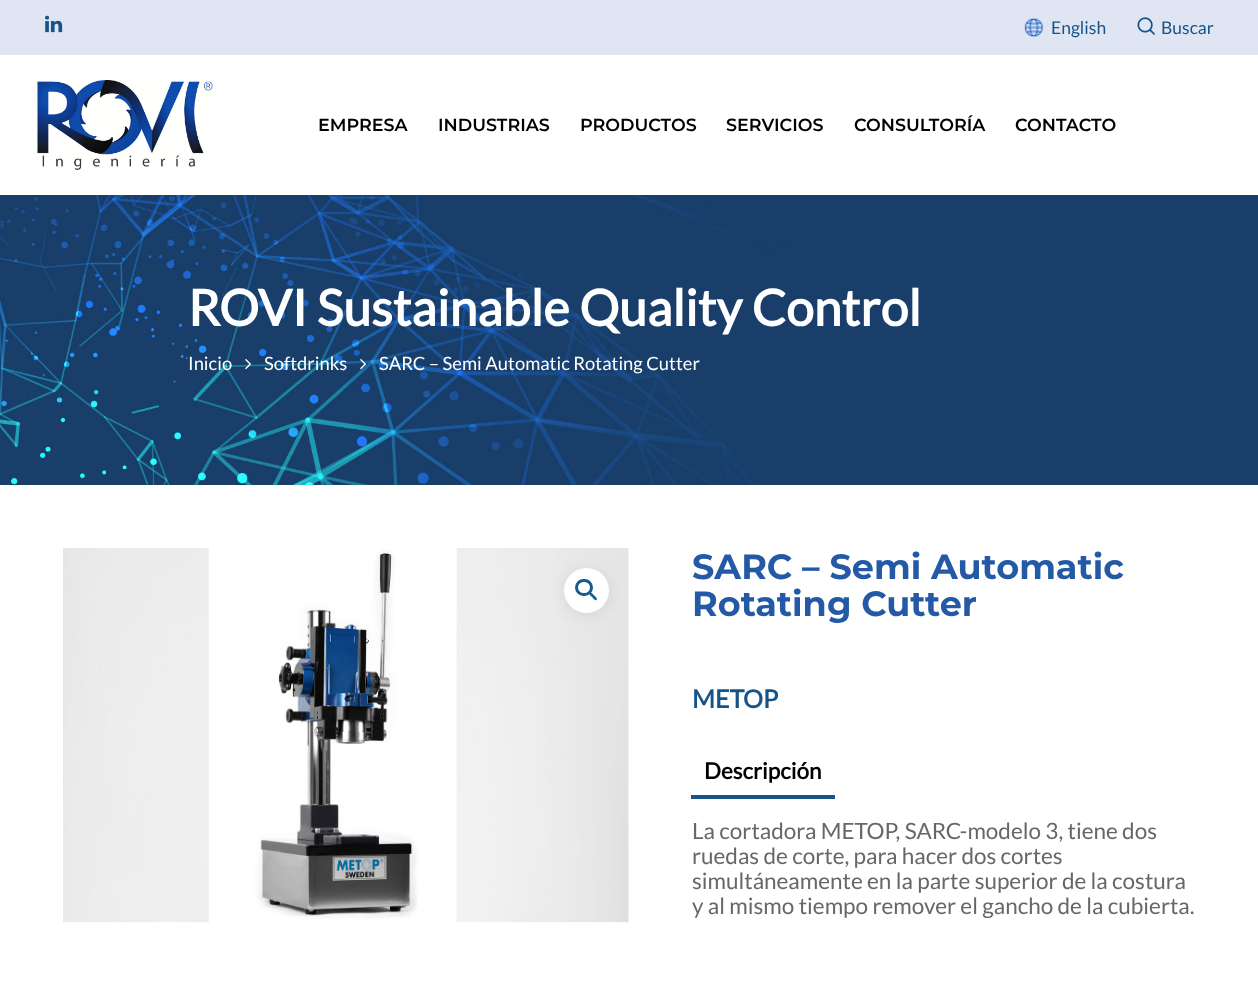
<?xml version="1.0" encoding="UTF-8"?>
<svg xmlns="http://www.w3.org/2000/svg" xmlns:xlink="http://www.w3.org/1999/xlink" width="1258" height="985">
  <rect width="100%" height="100%" fill="#ffffff" />
  <rect width="1258" height="55" fill="#dfe5f3" />
  <image x="45" y="15" width="18" height="18" xlink:href="image1.png" />
  <image x="1024" y="17" width="20" height="21" xlink:href="image2.png" />
  <image x="1137" y="17" width="18" height="18" xlink:href="image3.png" />
  <image x="37" y="80" width="176" height="90" xlink:href="image4.png" />
  <image x="0" y="195" width="1258" height="290" xlink:href="image5.png" />
  <image x="245" y="359" width="7" height="11" xlink:href="image6.png" />
  <image x="360" y="359" width="7" height="11" xlink:href="image7.png" />
  <image x="63" y="548" width="566" height="375" xlink:href="image8.png" />
  <rect x="564" y="570" width="45" height="45" rx="22.5" fill="#000000" fill-opacity="0.08" filter="blur(7.5px)" />
  <circle cx="586.5" cy="590.5" r="22.5" fill="#ffffff" />
  <rect x="576.5" y="580.5" width="15" height="14" rx="7" fill="none" stroke="#155b8b" stroke-width="3" />
  <path d="M 589.5 592.5 c 1.5 -1 3.5 2 4.5 3 c 1 0.5 4 3 2.5 4.5 c -1.5 1 -3.5 -2 -4.5 -3 c -0.5 -0.5 -4 -3 -2.5 -4.5 z" fill="#155b8b" />
  <rect x="691" y="795" width="144" height="4" fill="#165386" />
  <text x="1051" y="34" style="font-family: Lato; font-size: 17.5px; fill: #165386">English</text>
  <text x="1161" y="34" style="font-family: Lato; font-size: 17.5px; fill: #165386">Buscar</text>
  <text x="318" y="131" style="font-family: Montserrat; font-size: 17.5px; font-weight: 600; fill: #000000">EMPRESA</text>
  <text x="438" y="131" style="font-family: Montserrat; font-size: 17.5px; font-weight: 600; fill: #000000">INDUSTRIAS</text>
  <text x="580" y="131" style="font-family: Montserrat; font-size: 17.5px; font-weight: 600; fill: #000000">PRODUCTOS</text>
  <text x="726" y="131" style="font-family: Montserrat; font-size: 17.5px; font-weight: 600; fill: #000000">SERVICIOS</text>
  <text x="854" y="131" style="font-family: Montserrat; font-size: 17.5px; font-weight: 600; fill: #000000">CONSULTORÍA</text>
  <text x="1015" y="131" style="font-family: Montserrat; font-size: 17.5px; font-weight: 600; fill: #000000">CONTACTO</text>
  <text x="188" y="326" style="font-family: Lato; font-size: 50px; font-weight: bold; fill: #ffffff">ROVI Sustainable Quality Control</text>
  <text x="188" y="370" style="font-family: Lato; font-size: 18.4px; fill: #ffffff">Inicio</text>
  <text x="264" y="370" style="font-family: Lato; font-size: 18.4px; fill: #ffffff">Softdrinks</text>
  <text x="379" y="370" style="font-family: Lato; font-size: 18.4px; fill: #ffffff">SARC – Semi Automatic Rotating Cutter</text>
  <text x="692" y="579" style="font-family: Montserrat; font-size: 35px; font-weight: bold; fill: #245aa5">SARC – Semi Automatic</text>
  <text x="692" y="616" style="font-family: Montserrat; font-size: 35px; font-weight: bold; fill: #245aa5">Rotating Cutter</text>
  <text x="692" y="708" style="font-family: Lato; font-size: 25px; font-weight: bold; fill: #165386">METOP</text>
  <text x="704" y="779" style="font-family: Lato; font-size: 22.5px; font-weight: bold; fill: #000000">Descripción</text>
  <text x="692" y="839" style="font-family: Lato; font-size: 22.5px; fill: #676767">La cortadora METOP, SARC-modelo 3, tiene dos</text>
  <text x="692" y="864" style="font-family: Lato; font-size: 22.5px; fill: #676767">ruedas de corte, para hacer dos cortes</text>
  <text x="692" y="889" style="font-family: Lato; font-size: 22.5px; fill: #676767">simultáneamente en la parte superior de la costura</text>
  <text x="692" y="914" style="font-family: Lato; font-size: 22.5px; fill: #676767">y al mismo tiempo remover el gancho de la cubierta.</text>
</svg>
